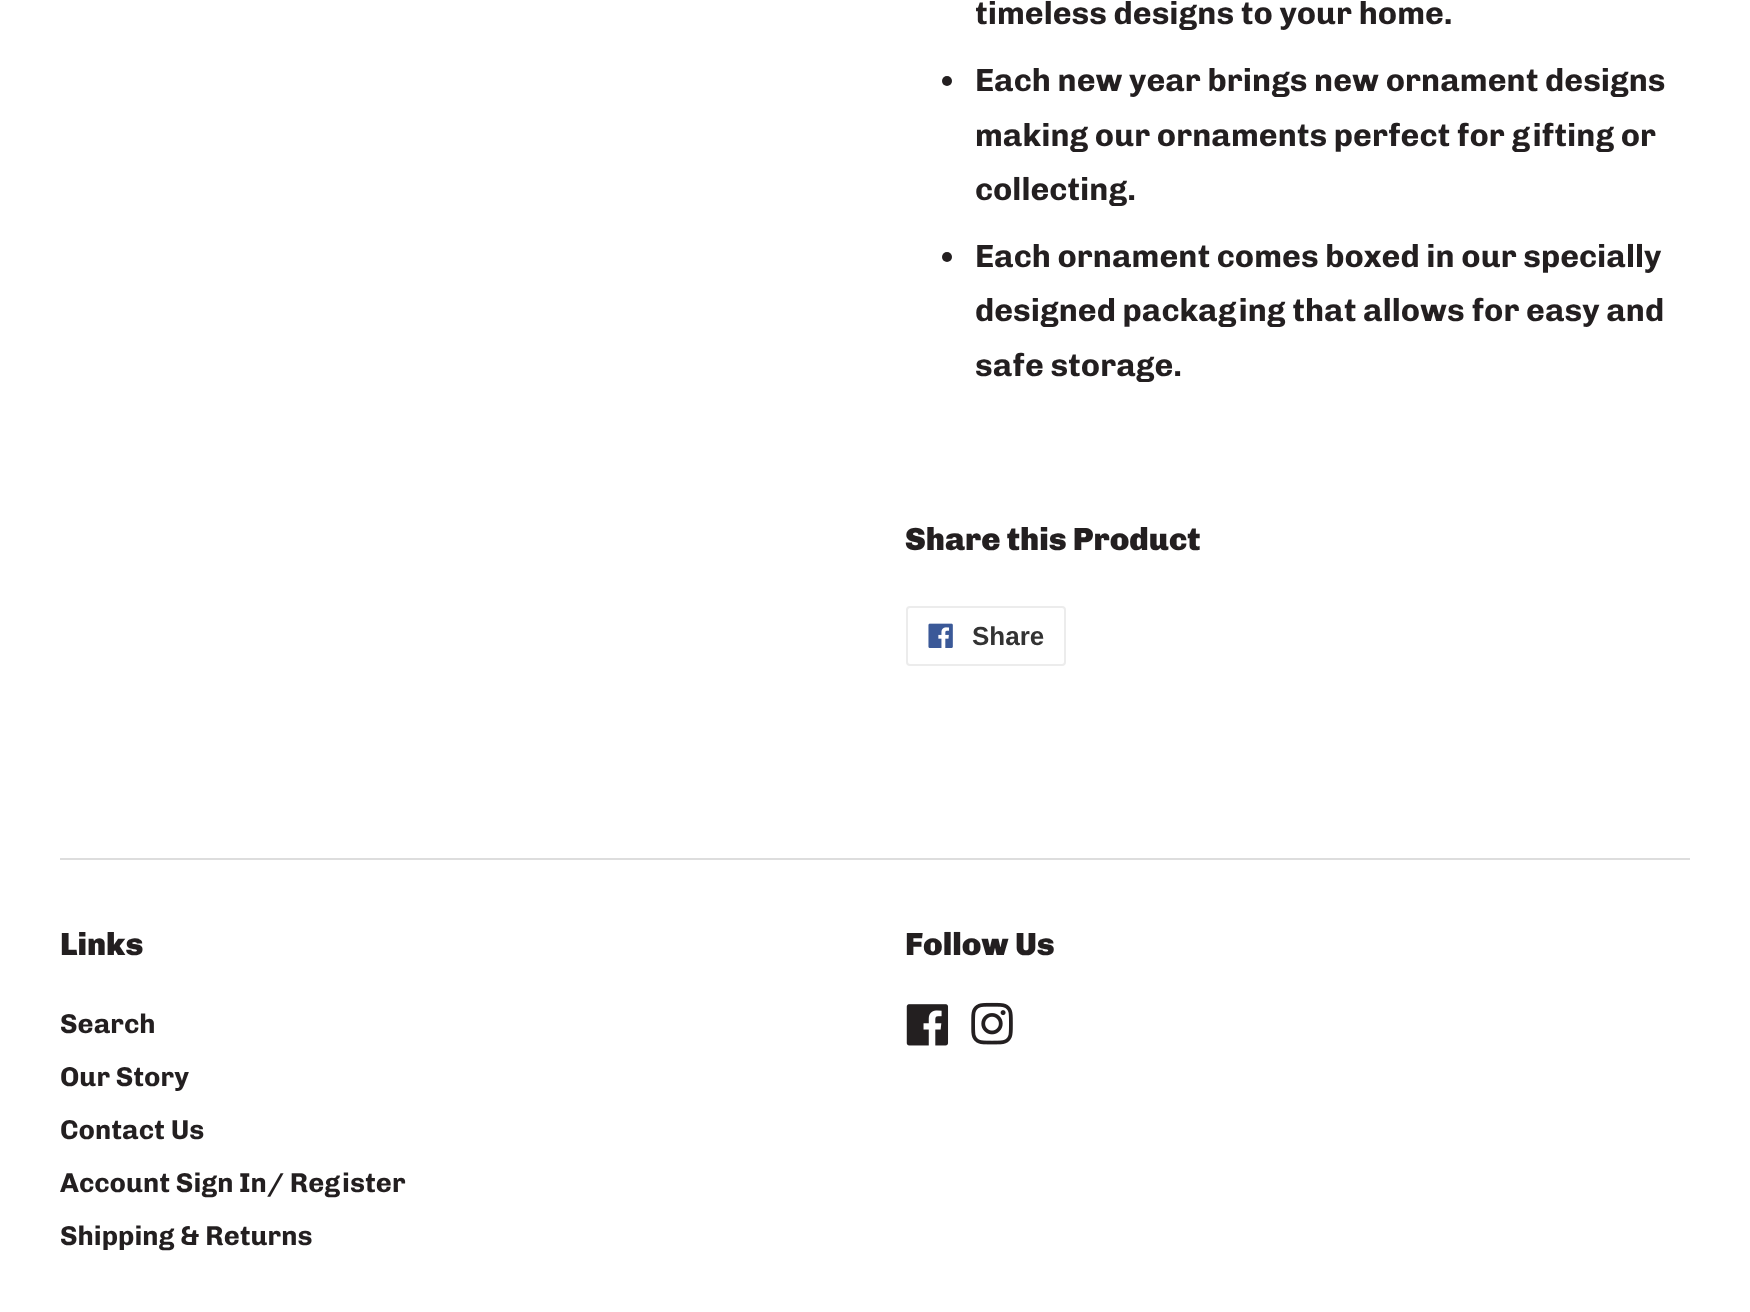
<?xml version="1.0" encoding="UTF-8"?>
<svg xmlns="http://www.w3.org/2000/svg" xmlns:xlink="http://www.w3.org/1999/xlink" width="1750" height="1312">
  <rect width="100%" height="100%" fill="#ffffff" />
  <circle cx="947" cy="81" r="5" fill="#231f20" />
  <circle cx="947" cy="257" r="5" fill="#231f20" />
  <rect x="907" y="607" width="158" height="58" rx="3" fill="none" stroke="#ececec" stroke-width="2" />
  <image x="928" y="623" width="25" height="25" xlink:href="image1.png" />
  <rect x="60" y="858" width="1630" height="2" fill="#dddddd" />
  <image x="906" y="1004" width="43" height="42" xlink:href="image2.png" />
  <image x="971" y="1002" width="42" height="43" xlink:href="image3.png" />
  <text x="975" y="24" style="font-family: Chivo; font-size: 32px; font-weight: bold; fill: #231f20">timeless designs to your home.</text>
  <text x="975" y="91" style="font-family: Chivo; font-size: 32px; font-weight: bold; fill: #231f20">Each new year brings new ornament designs</text>
  <text x="975" y="146" style="font-family: Chivo; font-size: 32px; font-weight: bold; fill: #231f20">making our ornaments perfect for gifting or</text>
  <text x="975" y="200" style="font-family: Chivo; font-size: 32px; font-weight: bold; fill: #231f20">collecting.</text>
  <text x="975" y="267" style="font-family: Chivo; font-size: 32px; font-weight: bold; fill: #231f20">Each ornament comes boxed in our specially</text>
  <text x="975" y="321" style="font-family: Chivo; font-size: 32px; font-weight: bold; fill: #231f20">designed packaging that allows for easy and</text>
  <text x="975" y="376" style="font-family: Chivo; font-size: 32px; font-weight: bold; fill: #231f20">safe storage.</text>
  <text x="905" y="550" style="font-family: Chivo; font-size: 32px; font-weight: 900; fill: #231f20">Share this Product</text>
  <text x="972" y="645" style="font-family: Liberation Sans; font-size: 26px; font-weight: bold; fill: #333333">Share</text>
  <text x="60" y="955" style="font-family: Chivo; font-size: 32px; font-weight: 900; fill: #231f20">Links</text>
  <text x="60" y="1033" style="font-family: Chivo; font-size: 27.25px; font-weight: bold; fill: #231f20">Search</text>
  <text x="60" y="1086" style="font-family: Chivo; font-size: 27.25px; font-weight: bold; fill: #231f20">Our Story</text>
  <text x="60" y="1139" style="font-family: Chivo; font-size: 27.25px; font-weight: bold; fill: #231f20">Contact Us</text>
  <text x="60" y="1192" style="font-family: Chivo; font-size: 27.25px; font-weight: bold; fill: #231f20">Account Sign In/ Register</text>
  <text x="60" y="1245" style="font-family: Chivo; font-size: 27.25px; font-weight: bold; fill: #231f20">Shipping &amp; Returns</text>
  <text x="905" y="955" style="font-family: Chivo; font-size: 32px; font-weight: 900; fill: #231f20">Follow Us</text>
</svg>
